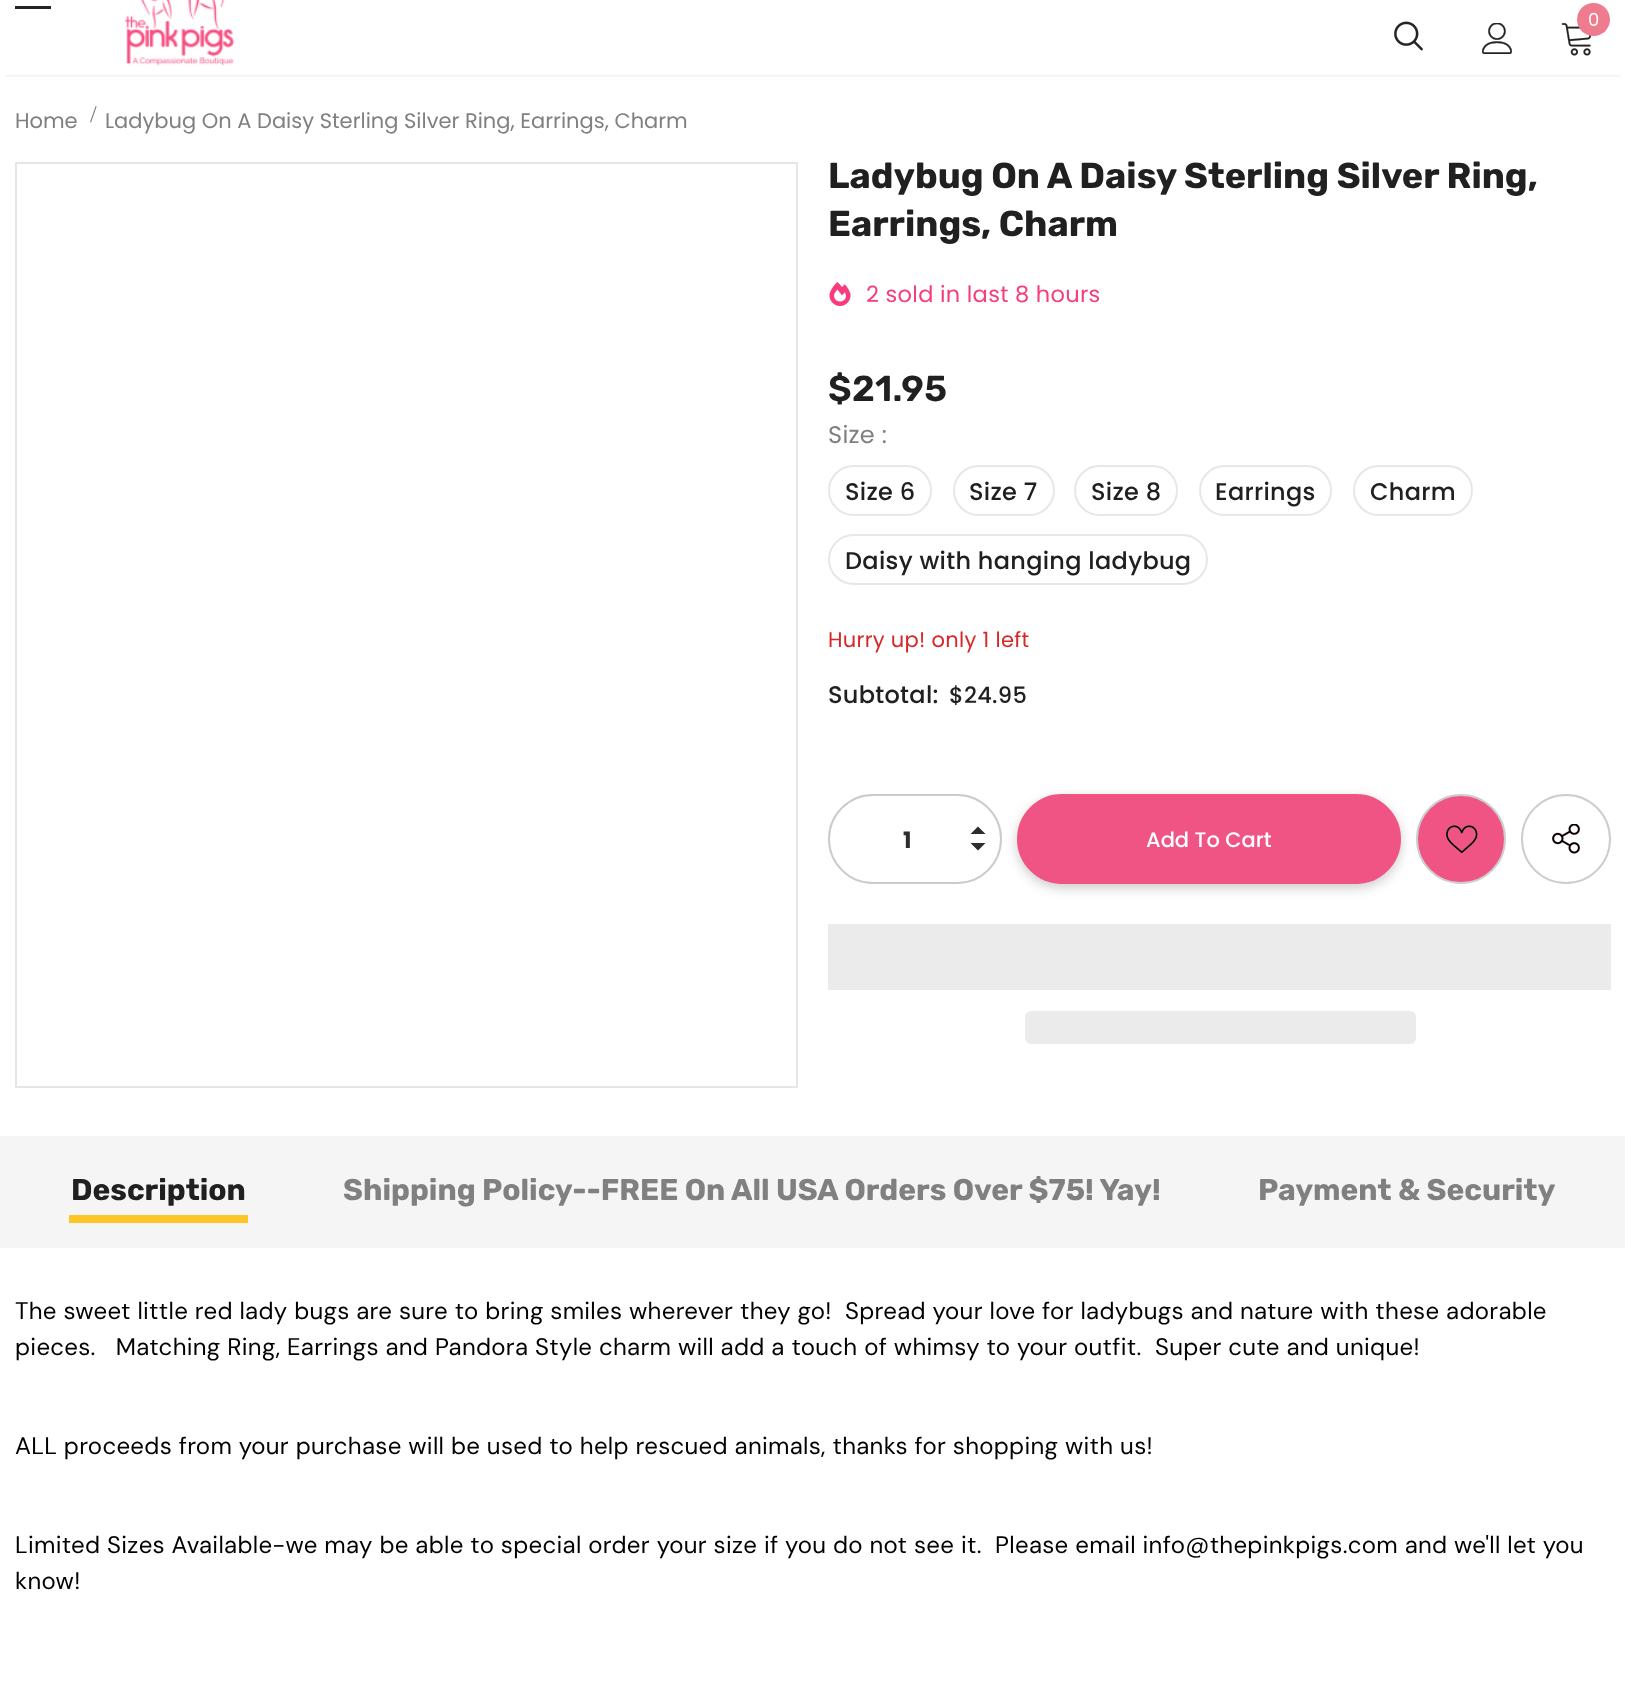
<?xml version="1.0" encoding="UTF-8"?>
<svg xmlns="http://www.w3.org/2000/svg" xmlns:xlink="http://www.w3.org/1999/xlink" width="1625" height="1693">
  <defs>
    <clipPath id="clip1"><rect x="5" y="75" width="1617" height="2" /></clipPath>
  </defs>
  <rect width="100%" height="100%" fill="#ffffff" />
  <g clip-path="url(#clip1)">
    <rect x="5" y="-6" width="1617" height="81" fill="#000000" fill-opacity="0.12" filter="blur(2px)" />
  </g>
  <rect x="15" y="6" width="36" height="3" fill="#232323" />
  <image x="124" y="0" width="111" height="66" xlink:href="image1.png" />
  <image x="1561" y="23" width="31" height="33" xlink:href="image2.png" />
  <circle cx="1593.5" cy="19.5" r="16.5" fill="#ef7c8e" />
  <image x="1394" y="21" width="29" height="30" xlink:href="image3.png" />
  <image x="1482" y="23" width="31" height="31" xlink:href="image4.png" />
  <rect x="16" y="163" width="781" height="924" fill="none" stroke="#e6e6e6" stroke-width="2" />
  <image x="829" y="282" width="22" height="24" xlink:href="image5.png" />
  <rect x="829" y="466" width="102" height="49" rx="24.5" fill="none" stroke="#e7e7e7" stroke-width="2" />
  <rect x="954" y="466" width="100" height="49" rx="24.5" fill="none" stroke="#e7e7e7" stroke-width="2" />
  <rect x="1075" y="466" width="102" height="49" rx="24.5" fill="none" stroke="#e7e7e7" stroke-width="2" />
  <rect x="1200" y="466" width="131" height="49" rx="24.5" fill="none" stroke="#e7e7e7" stroke-width="2" />
  <rect x="1354" y="466" width="118" height="49" rx="24.5" fill="none" stroke="#e7e7e7" stroke-width="2" />
  <rect x="829" y="535" width="378" height="49" rx="24.5" fill="none" stroke="#e7e7e7" stroke-width="2" />
  <rect x="1017" y="798" width="384" height="90" rx="45" fill="#000000" fill-opacity="0.2" filter="blur(6px)" />
  <rect x="829" y="795" width="172" height="88" rx="44" fill="none" stroke="#cbcbcb" stroke-width="2" />
  <path d="M 970.5 843 h 15 l -7.5 7.5 z m 15 -9 h -15 l 7.5 -7.5 z" fill="#2d2d2d" />
  <rect x="1018" y="795" width="382" height="88" rx="44" fill="#f05484" stroke="#f05484" stroke-width="2" />
  <circle cx="1461" cy="839" r="44" fill="#f05484" stroke="#cdcdcd" stroke-width="2" />
  <image x="1446" y="825" width="32" height="29" xlink:href="image6.png" />
  <circle cx="1566" cy="839" r="44" fill="none" stroke="#cdcdcd" stroke-width="2" />
  <image x="1552" y="824" width="28" height="30" xlink:href="image7.png" />
  <rect x="828" y="924" width="783" height="66" fill="#ebebeb" />
  <rect x="1025" y="1011" width="391" height="33" rx="6" fill="#ebebeb" />
  <rect y="1136" width="1625" height="112" fill="#f5f5f5" />
  <rect x="69" y="1215" width="179" height="8" fill="#fdc525" />
  <text x="1588" y="26" style="font-family: Poppins; font-size: 18px; fill: #ffffff">0</text>
  <text x="15" y="128" style="font-family: Poppins; font-size: 21px; fill: #808080">Home</text>
  <text x="90" y="122" style="font-family: Liberation Serif; font-size: 24px; fill: #808080">/</text>
  <text x="105" y="128" style="font-family: Poppins; font-size: 21px; fill: #808080">Ladybug On A Daisy Sterling Silver Ring, Earrings, Charm</text>
  <text x="828" y="188" style="font-family: Rubik; font-size: 36px; font-weight: bold; fill: #202020">Ladybug On A Daisy Sterling Silver Ring,</text>
  <text x="828" y="236" style="font-family: Rubik; font-size: 36px; font-weight: bold; fill: #202020">Earrings, Charm</text>
  <text x="866" y="302" style="font-family: Poppins; font-size: 22.5px; letter-spacing: 0.3px; fill: #f73b7d">2 sold in last 8 hours</text>
  <text x="828" y="401" style="font-family: Rubik; font-size: 36px; font-weight: 600; letter-spacing: 0.3px; fill: #202020">$21.95</text>
  <text x="828" y="443" style="font-family: Poppins; font-size: 24px; letter-spacing: 0.3px; fill: #808080">Size :</text>
  <text x="845" y="500" style="font-family: Poppins; font-size: 24px; font-weight: 500; letter-spacing: 0.3px; fill: #202020">Size 6</text>
  <text x="969" y="500" style="font-family: Poppins; font-size: 24px; font-weight: 500; letter-spacing: 0.3px; fill: #202020">Size 7</text>
  <text x="1091" y="500" style="font-family: Poppins; font-size: 24px; font-weight: 500; letter-spacing: 0.3px; fill: #202020">Size 8</text>
  <text x="1215" y="500" style="font-family: Poppins; font-size: 24px; font-weight: 500; letter-spacing: 0.3px; fill: #202020">Earrings</text>
  <text x="1370" y="500" style="font-family: Poppins; font-size: 24px; font-weight: 500; letter-spacing: 0.3px; fill: #202020">Charm</text>
  <text x="845" y="569" style="font-family: Poppins; font-size: 24px; font-weight: 500; letter-spacing: 0.3px; fill: #202020">Daisy with hanging ladybug</text>
  <text x="828" y="647" style="font-family: Poppins; font-size: 21px; letter-spacing: 0.3px; fill: #d62828">Hurry up! only 1 left</text>
  <text x="828" y="703" style="font-family: Poppins; font-size: 24px; font-weight: 500; letter-spacing: 0.3px; fill: #202020">Subtotal:</text>
  <text x="949" y="703" style="font-family: Poppins; font-size: 22.5px; font-weight: 500; letter-spacing: 0.3px; fill: #202020">$24.95</text>
  <text x="903" y="848" style="font-family: Poppins; font-size: 22.5px; font-weight: bold; fill: #2d2d2d">1</text>
  <text x="1146" y="847" style="font-family: Poppins; font-size: 21px; font-weight: 500; fill: #ffffff">Add To Cart</text>
  <text x="71" y="1200" style="font-family: Rubik; font-size: 30px; font-weight: bold; fill: #202020">Description</text>
  <text x="343" y="1200" style="font-family: Rubik; font-size: 30px; font-weight: bold; fill: #808080">Shipping Policy--FREE On All USA Orders Over $75! Yay!</text>
  <text x="1258" y="1200" style="font-family: Rubik; font-size: 30px; font-weight: bold; fill: #808080">Payment &amp; Security</text>
  <text x="15" y="1319" style="font-family: DM Sans; font-size: 24px; letter-spacing: 0.3px; fill: #000000" xml:space="preserve">The sweet little red lady bugs are sure to bring smiles wherever they go!  Spread your love for ladybugs and nature with these adorable</text>
  <text x="15" y="1355" style="font-family: DM Sans; font-size: 24px; letter-spacing: 0.3px; fill: #000000" xml:space="preserve">pieces.   Matching Ring, Earrings and Pandora Style charm will add a touch of whimsy to your outfit.  Super cute and unique!</text>
  <text x="15" y="1454" style="font-family: DM Sans; font-size: 24px; letter-spacing: 0.3px; fill: #000000">ALL proceeds from your purchase will be used to help rescued animals, thanks for shopping with us!</text>
  <text x="15" y="1553" style="font-family: DM Sans; font-size: 24px; letter-spacing: 0.3px; fill: #000000" xml:space="preserve">Limited Sizes Available-we may be able to special order your size if you do not see it.  Please email info@thepinkpigs.com and we'll let you</text>
  <text x="15" y="1589" style="font-family: DM Sans; font-size: 24px; letter-spacing: 0.3px; fill: #000000">know!</text>
</svg>
